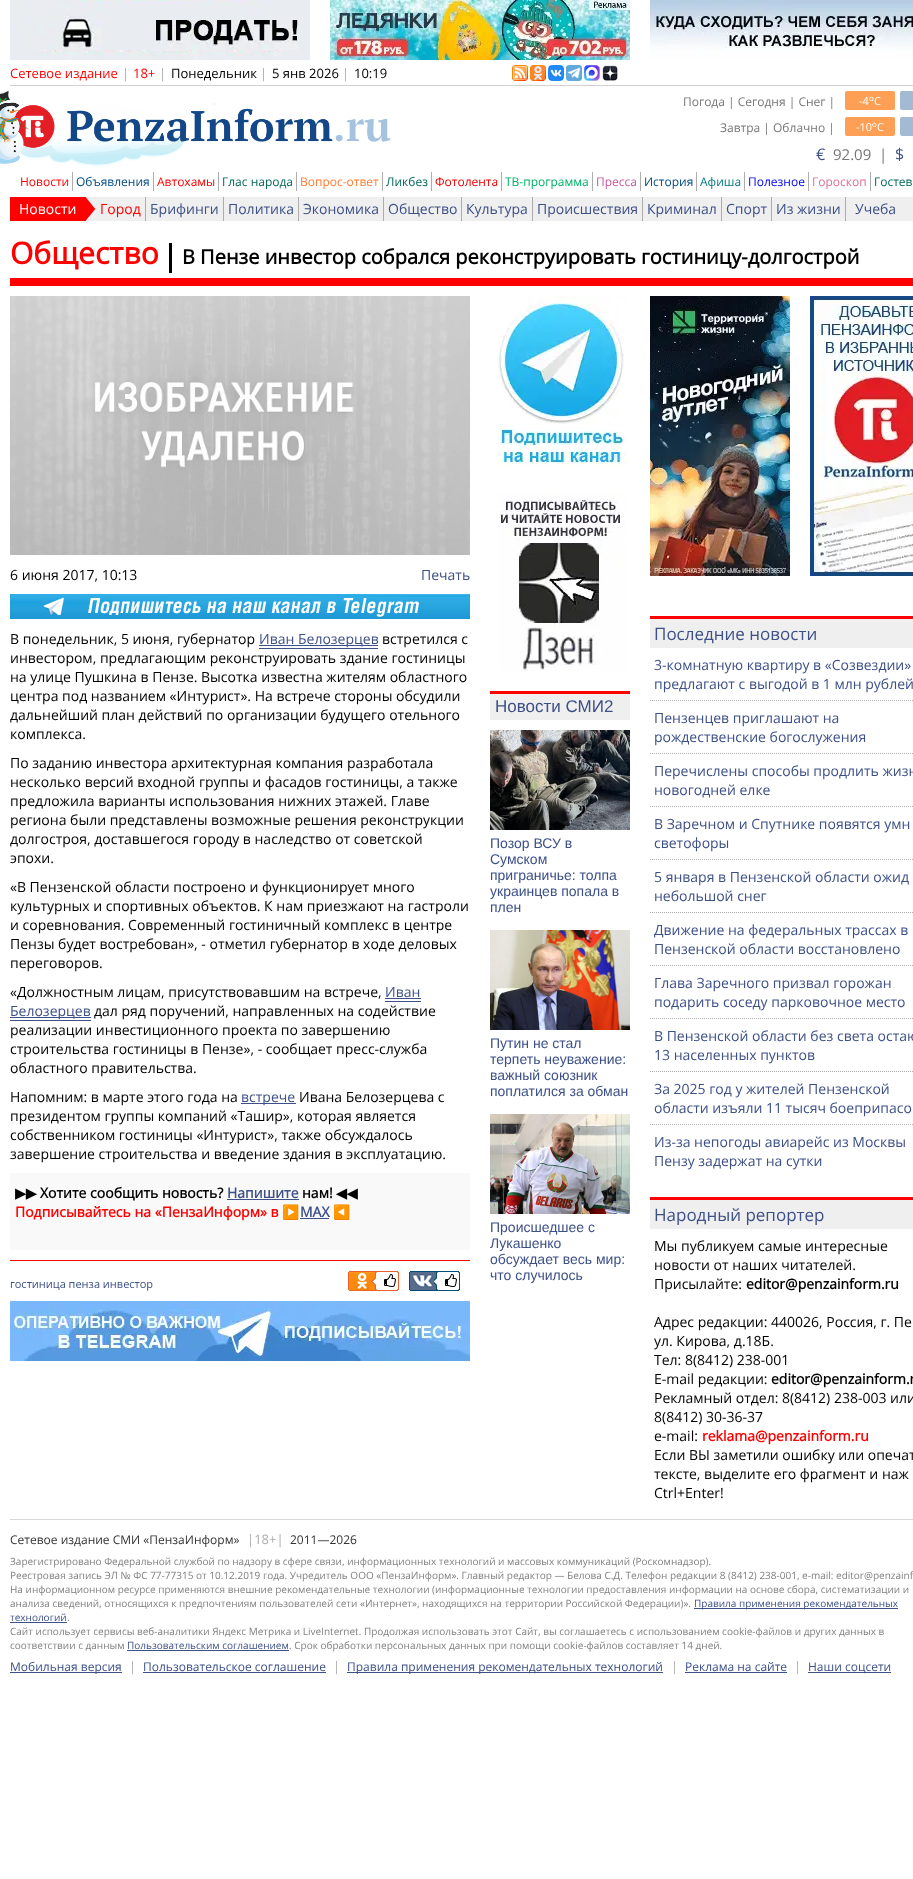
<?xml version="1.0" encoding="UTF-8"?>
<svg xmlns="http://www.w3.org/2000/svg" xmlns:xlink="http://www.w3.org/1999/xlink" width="913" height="1879">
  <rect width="100%" height="100%" fill="#ffffff" />
  <image x="10" y="0" width="300" height="60" xlink:href="image1.png" />
  <image x="330" y="0" width="300" height="60" xlink:href="image2.png" />
  <image x="650" y="0" width="263" height="60" xlink:href="image3.png" />
  <rect x="10" y="85" width="903" height="1" fill="#d1d1d1" />
  <image x="512" y="65" width="16" height="16" xlink:href="image4.png" />
  <image x="530" y="65" width="16" height="16" xlink:href="image5.png" />
  <image x="548" y="65" width="16" height="16" xlink:href="image6.png" />
  <image x="566" y="65" width="16" height="16" xlink:href="image7.png" />
  <image x="584" y="65" width="16" height="16" xlink:href="image8.png" />
  <image x="602" y="65" width="16" height="16" xlink:href="image9.png" />
  <image x="0" y="91" width="391" height="76" xlink:href="image10.png" />
  <rect x="845" y="91" width="50" height="19" rx="2" fill="#fda055" />
  <rect x="900" y="91" width="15" height="19" rx="2" fill="#a4bad4" />
  <rect x="845" y="117" width="50" height="19" rx="2" fill="#fda055" />
  <rect x="900" y="117" width="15" height="19" rx="2" fill="#a4bad4" />
  <rect x="72" y="172" width="1" height="19" fill="#adadad" />
  <rect x="153" y="172" width="1" height="19" fill="#adadad" />
  <rect x="218" y="172" width="1" height="19" fill="#adadad" />
  <rect x="296" y="172" width="1" height="19" fill="#adadad" />
  <rect x="382" y="172" width="1" height="19" fill="#adadad" />
  <rect x="431" y="172" width="1" height="19" fill="#adadad" />
  <rect x="501" y="172" width="1" height="19" fill="#adadad" />
  <rect x="592" y="172" width="1" height="19" fill="#adadad" />
  <rect x="640" y="172" width="1" height="19" fill="#adadad" />
  <rect x="696" y="172" width="1" height="19" fill="#adadad" />
  <rect x="744" y="172" width="1" height="19" fill="#adadad" />
  <rect x="808" y="172" width="1" height="19" fill="#adadad" />
  <rect x="870" y="172" width="1" height="19" fill="#adadad" />
  <rect x="96" y="197" width="817" height="24" fill="#efefef" />
  <rect x="10" y="197" width="86" height="24" fill="#ff0000" />
  <image x="86" y="197" width="10" height="24" xlink:href="image11.png" />
  <rect x="145" y="197" width="1" height="24" fill="#adadad" />
  <rect x="223" y="197" width="1" height="24" fill="#adadad" />
  <rect x="298" y="197" width="1" height="24" fill="#adadad" />
  <rect x="383" y="197" width="1" height="24" fill="#adadad" />
  <rect x="461" y="197" width="1" height="24" fill="#adadad" />
  <rect x="532" y="197" width="1" height="24" fill="#adadad" />
  <rect x="642" y="197" width="1" height="24" fill="#adadad" />
  <rect x="721" y="197" width="1" height="24" fill="#adadad" />
  <rect x="771" y="197" width="1" height="24" fill="#adadad" />
  <rect x="845" y="197" width="1" height="24" fill="#adadad" />
  <rect x="10" y="278" width="903" height="8" fill="#ff0000" />
  <rect x="169" y="243" width="3" height="30" fill="#000000" />
  <image x="10" y="296" width="460" height="259" xlink:href="image12.png" />
  <image x="10" y="594" width="460" height="25" xlink:href="image13.png" />
  <rect x="259" y="648" width="119" height="1" fill="#3d5087" />
  <rect x="259" y="645" width="119" height="1" fill="#3d5087" />
  <rect x="385" y="1001" width="36" height="1" fill="#3d5087" />
  <rect x="385" y="998" width="36" height="1" fill="#3d5087" />
  <rect x="10" y="1020" width="81" height="1" fill="#3d5087" />
  <rect x="10" y="1017" width="81" height="1" fill="#3d5087" />
  <rect x="241" y="1103" width="55" height="1" fill="#3d5087" />
  <rect x="10" y="1173" width="460" height="77" fill="#f9f9f9" />
  <rect x="227" y="1199" width="72" height="1" fill="#3d5087" />
  <rect x="300" y="1218" width="29" height="1" fill="#3d5087" />
  <rect x="10" y="1260" width="460" height="1" fill="#ff0000" />
  <image x="348" y="1271" width="51" height="20" xlink:href="image14.png" />
  <image x="384" y="1274" width="12" height="13" xlink:href="image15.png" />
  <image x="409" y="1271" width="51" height="20" xlink:href="image16.png" />
  <image x="445" y="1274" width="12" height="13" xlink:href="image17.png" />
  <image x="10" y="1301" width="460" height="60" xlink:href="image18.png" />
  <image x="498" y="296" width="129" height="172" xlink:href="image19.png" />
  <image x="498" y="491" width="128" height="180" xlink:href="image20.png" />
  <rect x="490" y="694" width="140" height="26" fill="#efefef" />
  <rect x="490" y="691" width="140" height="3" fill="#ff0000" />
  <image x="490" y="730" width="140" height="100" xlink:href="image21.png" />
  <image x="490" y="930" width="140" height="100" xlink:href="image22.png" />
  <image x="490" y="1114" width="140" height="100" xlink:href="image23.png" />
  <image x="650" y="296" width="140" height="280" xlink:href="image24.png" />
  <image x="810" y="296" width="103" height="280" xlink:href="image25.png" />
  <rect x="650" y="619" width="263" height="29" fill="#efefef" />
  <rect x="650" y="616" width="263" height="3" fill="#ff0000" />
  <path d="M 650 700.5 h 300" fill="none" stroke="#adadad" stroke-dasharray="1 1" />
  <path d="M 650 753.5 h 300" fill="none" stroke="#adadad" stroke-dasharray="1 1" />
  <path d="M 650 806.5 h 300" fill="none" stroke="#adadad" stroke-dasharray="1 1" />
  <path d="M 650 859.5 h 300" fill="none" stroke="#adadad" stroke-dasharray="1 1" />
  <path d="M 650 912.5 h 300" fill="none" stroke="#adadad" stroke-dasharray="1 1" />
  <path d="M 650 965.5 h 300" fill="none" stroke="#adadad" stroke-dasharray="1 1" />
  <path d="M 650 1018.5 h 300" fill="none" stroke="#adadad" stroke-dasharray="1 1" />
  <path d="M 650 1071.5 h 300" fill="none" stroke="#adadad" stroke-dasharray="1 1" />
  <path d="M 650 1124.5 h 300" fill="none" stroke="#adadad" stroke-dasharray="1 1" />
  <rect x="650" y="1200" width="263" height="29" fill="#efefef" />
  <rect x="650" y="1197" width="263" height="3" fill="#ff0000" />
  <rect x="10" y="1519" width="903" height="1" fill="#d7d7d7" />
  <rect x="694" y="1608" width="204" height="1" fill="#3d5087" />
  <rect x="10" y="1622" width="57" height="1" fill="#3d5087" />
  <rect x="127" y="1650" width="162" height="1" fill="#3d5087" />
  <rect x="10" y="1672" width="112" height="1" fill="#3d5087" />
  <rect x="143" y="1672" width="183" height="1" fill="#3d5087" />
  <rect x="347" y="1672" width="316" height="1" fill="#3d5087" />
  <rect x="685" y="1672" width="102" height="1" fill="#3d5087" />
  <rect x="808" y="1672" width="83" height="1" fill="#3d5087" />
  <text x="10" y="78" style="font-family: Open Sans; font-size: 13px; fill: #ff0000">Сетевое издание</text>
  <text x="122" y="78" style="font-family: Open Sans; font-size: 13px; fill: #adadad">|</text>
  <text x="133" y="78" style="font-family: Open Sans; font-size: 13px; fill: #ff0000">18+</text>
  <text x="159" y="78" style="font-family: Open Sans; font-size: 13px; fill: #adadad">|</text>
  <text x="171" y="78" style="font-family: Open Sans; font-size: 13px; fill: #000000">Понедельник</text>
  <text x="260" y="78" style="font-family: Open Sans; font-size: 13px; fill: #adadad">|</text>
  <text x="272" y="78" style="font-family: Open Sans; font-size: 13px; fill: #000000">5 янв 2026</text>
  <text x="342" y="78" style="font-family: Open Sans; font-size: 13px; fill: #adadad">|</text>
  <text x="354" y="78" style="font-family: Open Sans; font-size: 13px; fill: #000000">10:19</text>
  <text x="683" y="106" style="font-family: Open Sans; font-size: 12px; fill: #777777">Погода | Сегодня | Снег |</text>
  <text x="859" y="105" style="font-family: Open Sans; font-size: 11px; fill: #ffffff">-4</text>
  <text x="869" y="101" style="font-family: Open Sans; font-size: 8px; fill: #ffffff">o</text>
  <text x="874" y="105" style="font-family: Open Sans; font-size: 11px; fill: #ffffff">C</text>
  <text x="720" y="132" style="font-family: Open Sans; font-size: 12px; fill: #777777">Завтра | Облачно |</text>
  <text x="856" y="131" style="font-family: Open Sans; font-size: 11px; fill: #ffffff">-10</text>
  <text x="872" y="127" style="font-family: Open Sans; font-size: 8px; fill: #ffffff">o</text>
  <text x="877" y="131" style="font-family: Open Sans; font-size: 11px; fill: #ffffff">C</text>
  <text x="816" y="160" style="font-family: Open Sans; font-size: 16px; fill: #3d5087">€</text>
  <text x="833" y="160" style="font-family: Open Sans; font-size: 15px; fill: #777777">92.09</text>
  <text x="879" y="160" style="font-family: Open Sans; font-size: 15px; fill: #777777">|</text>
  <text x="895" y="160" style="font-family: Open Sans; font-size: 16px; fill: #3d5087">$</text>
  <text x="20" y="186" style="font-family: Open Sans; font-size: 12px; fill: #ff0000">Новости</text>
  <text x="76" y="186" style="font-family: Open Sans; font-size: 12px; fill: #004b85">Объявления</text>
  <text x="157" y="186" style="font-family: Open Sans; font-size: 12px; fill: #ff0000">Автохамы</text>
  <text x="222" y="186" style="font-family: Open Sans; font-size: 12px; fill: #006858">Глас народа</text>
  <text x="300" y="186" style="font-family: Open Sans; font-size: 12px; fill: #ff7b31">Вопрос-ответ</text>
  <text x="386" y="186" style="font-family: Open Sans; font-size: 12px; fill: #006858">Ликбез</text>
  <text x="435" y="186" style="font-family: Open Sans; font-size: 12px; fill: #e90102">Фотолента</text>
  <text x="505" y="186" style="font-family: Open Sans; font-size: 12px; fill: #01b267">ТВ-программа</text>
  <text x="596" y="186" style="font-family: Open Sans; font-size: 12px; fill: #c857a1">Пресса</text>
  <text x="644" y="186" style="font-family: Open Sans; font-size: 12px; fill: #004b85">История</text>
  <text x="700" y="186" style="font-family: Open Sans; font-size: 12px; fill: #007981">Афиша</text>
  <text x="748" y="186" style="font-family: Open Sans; font-size: 12px; fill: #0000ee">Полезное</text>
  <text x="812" y="186" style="font-family: Open Sans; font-size: 12px; fill: #db7093">Гороскоп</text>
  <text x="874" y="186" style="font-family: Open Sans; font-size: 12px; fill: #006858">Гостев</text>
  <text x="19" y="214" style="font-family: Open Sans; font-size: 14px; fill: #ffffff">Новости</text>
  <text x="100" y="214" style="font-family: Open Sans; font-size: 14px; fill: #ff0000">Город</text>
  <text x="150" y="214" style="font-family: Open Sans; font-size: 14px; fill: #3d5087">Брифинги</text>
  <text x="228" y="214" style="font-family: Open Sans; font-size: 14px; fill: #3d5087">Политика</text>
  <text x="303" y="214" style="font-family: Open Sans; font-size: 14px; fill: #3d5087">Экономика</text>
  <text x="388" y="214" style="font-family: Open Sans; font-size: 14px; fill: #3d5087">Общество</text>
  <text x="466" y="214" style="font-family: Open Sans; font-size: 14px; fill: #3d5087">Культура</text>
  <text x="537" y="214" style="font-family: Open Sans; font-size: 14px; fill: #3d5087">Происшествия</text>
  <text x="647" y="214" style="font-family: Open Sans; font-size: 14px; fill: #3d5087">Криминал</text>
  <text x="726" y="214" style="font-family: Open Sans; font-size: 14px; fill: #3d5087">Спорт</text>
  <text x="776" y="214" style="font-family: Open Sans; font-size: 14px; fill: #3d5087">Из жизни</text>
  <text x="855" y="214" style="font-family: Open Sans; font-size: 14px; fill: #3d5087">Учеба</text>
  <text x="10" y="264" style="font-family: Open Sans; font-size: 30px; font-weight: bold; fill: #ff0000">Общество</text>
  <text x="182" y="264" style="font-family: Open Sans; font-size: 20px; font-weight: bold; fill: #000000">В Пензе инвестор собрался реконструировать гостиницу-долгострой</text>
  <text x="10" y="580" style="font-family: Open Sans; font-size: 14px; fill: #000000">6 июня 2017, 10:13</text>
  <text x="421" y="580" style="font-family: Open Sans; font-size: 14px; fill: #3d5087">Печать</text>
  <text x="10" y="644" style="font-family: Open Sans; font-size: 14px; fill: #000000">В понедельник, 5 июня, губернатор</text>
  <text x="259" y="644" style="font-family: Open Sans; font-size: 14px; fill: #3d5087">Иван Белозерцев</text>
  <text x="382" y="644" style="font-family: Open Sans; font-size: 14px; fill: #000000">встретился с</text>
  <text x="10" y="663" style="font-family: Open Sans; font-size: 14px; fill: #000000">инвестором, предлагающим реконструировать здание гостиницы</text>
  <text x="10" y="682" style="font-family: Open Sans; font-size: 14px; fill: #000000">на улице Пушкина в Пензе. Высотка известна жителям областного</text>
  <text x="10" y="701" style="font-family: Open Sans; font-size: 14px; fill: #000000">центра под названием «Интурист». На встрече стороны обсудили</text>
  <text x="10" y="720" style="font-family: Open Sans; font-size: 14px; fill: #000000">дальнейший план действий по организации будущего отельного</text>
  <text x="10" y="739" style="font-family: Open Sans; font-size: 14px; fill: #000000">комплекса.</text>
  <text x="10" y="768" style="font-family: Open Sans; font-size: 14px; fill: #000000">По заданию инвестора архитектурная компания разработала</text>
  <text x="10" y="787" style="font-family: Open Sans; font-size: 14px; fill: #000000">несколько версий входной группы и фасадов гостиницы, а также</text>
  <text x="10" y="806" style="font-family: Open Sans; font-size: 14px; fill: #000000">предложила варианты использования нижних этажей. Главе</text>
  <text x="10" y="825" style="font-family: Open Sans; font-size: 14px; fill: #000000">региона были представлены возможные решения реконструкции</text>
  <text x="10" y="844" style="font-family: Open Sans; font-size: 14px; fill: #000000">долгостроя, доставшегося городу в наследство от советской</text>
  <text x="10" y="863" style="font-family: Open Sans; font-size: 14px; fill: #000000">эпохи.</text>
  <text x="10" y="892" style="font-family: Open Sans; font-size: 14px; fill: #000000">«В Пензенской области построено и функционирует много</text>
  <text x="10" y="911" style="font-family: Open Sans; font-size: 14px; fill: #000000">культурных и спортивных объектов. К нам приезжают на гастроли</text>
  <text x="10" y="930" style="font-family: Open Sans; font-size: 14px; fill: #000000">и соревнования. Современный гостиничный комплекс в центре</text>
  <text x="10" y="949" style="font-family: Open Sans; font-size: 14px; fill: #000000">Пензы будет востребован», - отметил губернатор в ходе деловых</text>
  <text x="10" y="968" style="font-family: Open Sans; font-size: 14px; fill: #000000">переговоров.</text>
  <text x="10" y="997" style="font-family: Open Sans; font-size: 14px; fill: #000000">«Должностным лицам, присутствовавшим на встрече,</text>
  <text x="385" y="997" style="font-family: Open Sans; font-size: 14px; fill: #3d5087">Иван</text>
  <text x="10" y="1016" style="font-family: Open Sans; font-size: 14px; fill: #3d5087">Белозерцев</text>
  <text x="94" y="1016" style="font-family: Open Sans; font-size: 14px; fill: #000000">дал ряд поручений, направленных на содействие</text>
  <text x="10" y="1035" style="font-family: Open Sans; font-size: 14px; fill: #000000">реализации инвестиционного проекта по завершению</text>
  <text x="10" y="1054" style="font-family: Open Sans; font-size: 14px; fill: #000000">строительства гостиницы в Пензе», - сообщает пресс-служба</text>
  <text x="10" y="1073" style="font-family: Open Sans; font-size: 14px; fill: #000000">областного правительства.</text>
  <text x="10" y="1102" style="font-family: Open Sans; font-size: 14px; fill: #000000">Напомним: в марте этого года на</text>
  <text x="241" y="1102" style="font-family: Open Sans; font-size: 14px; fill: #3d5087">встрече</text>
  <text x="299" y="1102" style="font-family: Open Sans; font-size: 14px; fill: #000000">Ивана Белозерцева с</text>
  <text x="10" y="1121" style="font-family: Open Sans; font-size: 14px; fill: #000000">президентом группы компаний «Ташир», которая является</text>
  <text x="10" y="1140" style="font-family: Open Sans; font-size: 14px; fill: #000000">собственником гостиницы «Интурист», также обсуждалось</text>
  <text x="10" y="1159" style="font-family: Open Sans; font-size: 14px; fill: #000000">завершение строительства и введение здания в эксплуатацию.</text>
  <text x="15" y="1198" style="font-family: DejaVu Sans; font-size: 14px; font-weight: bold; fill: #000000">▶▶</text>
  <text x="40" y="1198" style="font-family: Open Sans; font-size: 14px; font-weight: bold; fill: #000000">Хотите сообщить новость?</text>
  <text x="227" y="1198" style="font-family: Open Sans; font-size: 14px; font-weight: bold; fill: #3d5087">Напишите</text>
  <text x="302" y="1198" style="font-family: Open Sans; font-size: 14px; font-weight: bold; fill: #000000">нам!</text>
  <text x="336" y="1198" style="font-family: DejaVu Sans; font-size: 14px; font-weight: bold; fill: #000000">◀◀</text>
  <text x="15" y="1217" style="font-family: Open Sans; font-size: 14px; font-weight: bold; fill: #ff0000">Подписывайтесь на «ПензаИнформ» в</text>
  <text x="282" y="1217" style="font-family: Noto Color Emoji; font-size: 14px; font-weight: bold; fill: #000000">▶️</text>
  <text x="300" y="1217" style="font-family: Open Sans; font-size: 14px; font-weight: bold; fill: #3d5087">MAX</text>
  <text x="333" y="1217" style="font-family: Noto Color Emoji; font-size: 14px; font-weight: bold; fill: #000000">◀️</text>
  <text x="10" y="1288" style="font-family: Open Sans; font-size: 11px; fill: #3d5087">гостиница пенза инвестор</text>
  <text x="495" y="712" style="font-family: Liberation Sans; font-size: 17px; fill: #3d5087">Новости СМИ2</text>
  <text x="490" y="848" style="font-family: Liberation Sans; font-size: 14px; fill: #3d5087">Позор ВСУ в</text>
  <text x="490" y="864" style="font-family: Liberation Sans; font-size: 14px; fill: #3d5087">Сумском</text>
  <text x="490" y="880" style="font-family: Liberation Sans; font-size: 14px; fill: #3d5087">приграничье: толпа</text>
  <text x="490" y="896" style="font-family: Liberation Sans; font-size: 14px; fill: #3d5087">украинцев попала в</text>
  <text x="490" y="912" style="font-family: Liberation Sans; font-size: 14px; fill: #3d5087">плен</text>
  <text x="490" y="1048" style="font-family: Liberation Sans; font-size: 14px; fill: #3d5087">Путин не стал</text>
  <text x="490" y="1064" style="font-family: Liberation Sans; font-size: 14px; fill: #3d5087">терпеть неуважение:</text>
  <text x="490" y="1080" style="font-family: Liberation Sans; font-size: 14px; fill: #3d5087">важный союзник</text>
  <text x="490" y="1096" style="font-family: Liberation Sans; font-size: 14px; fill: #3d5087">поплатился за обман</text>
  <text x="490" y="1232" style="font-family: Liberation Sans; font-size: 14px; fill: #3d5087">Происшедшее с</text>
  <text x="490" y="1248" style="font-family: Liberation Sans; font-size: 14px; fill: #3d5087">Лукашенко</text>
  <text x="490" y="1264" style="font-family: Liberation Sans; font-size: 14px; fill: #3d5087">обсуждает весь мир:</text>
  <text x="490" y="1280" style="font-family: Liberation Sans; font-size: 14px; fill: #3d5087">что случилось</text>
  <text x="654" y="640" style="font-family: Open Sans; font-size: 17px; fill: #3d5087">Последние новости</text>
  <text x="654" y="670" style="font-family: Open Sans; font-size: 14px; fill: #3d5087">3-комнатную квартиру в «Созвездии»</text>
  <text x="654" y="689" style="font-family: Open Sans; font-size: 14px; fill: #3d5087">предлагают с выгодой в 1 млн рублей</text>
  <text x="654" y="723" style="font-family: Open Sans; font-size: 14px; fill: #3d5087">Пензенцев приглашают на</text>
  <text x="654" y="742" style="font-family: Open Sans; font-size: 14px; fill: #3d5087">рождественские богослужения</text>
  <text x="654" y="776" style="font-family: Open Sans; font-size: 14px; fill: #3d5087">Перечислены способы продлить жизн</text>
  <text x="654" y="795" style="font-family: Open Sans; font-size: 14px; fill: #3d5087">новогодней елке</text>
  <text x="654" y="829" style="font-family: Open Sans; font-size: 14px; fill: #3d5087">В Заречном и Спутнике появятся умн</text>
  <text x="654" y="848" style="font-family: Open Sans; font-size: 14px; fill: #3d5087">светофоры</text>
  <text x="654" y="882" style="font-family: Open Sans; font-size: 14px; fill: #3d5087">5 января в Пензенской области ожид</text>
  <text x="654" y="901" style="font-family: Open Sans; font-size: 14px; fill: #3d5087">небольшой снег</text>
  <text x="654" y="935" style="font-family: Open Sans; font-size: 14px; fill: #3d5087">Движение на федеральных трассах в</text>
  <text x="654" y="954" style="font-family: Open Sans; font-size: 14px; fill: #3d5087">Пензенской области восстановлено</text>
  <text x="654" y="988" style="font-family: Open Sans; font-size: 14px; fill: #3d5087">Глава Заречного призвал горожан</text>
  <text x="654" y="1007" style="font-family: Open Sans; font-size: 14px; fill: #3d5087">подарить соседу парковочное место</text>
  <text x="654" y="1041" style="font-family: Open Sans; font-size: 14px; fill: #3d5087">В Пензенской области без света остаю</text>
  <text x="654" y="1060" style="font-family: Open Sans; font-size: 14px; fill: #3d5087">13 населенных пунктов</text>
  <text x="654" y="1094" style="font-family: Open Sans; font-size: 14px; fill: #3d5087">За 2025 год у жителей Пензенской</text>
  <text x="654" y="1113" style="font-family: Open Sans; font-size: 14px; fill: #3d5087">области изъяли 11 тысяч боеприпасо</text>
  <text x="654" y="1147" style="font-family: Open Sans; font-size: 14px; fill: #3d5087">Из-за непогоды авиарейс из Москвы</text>
  <text x="654" y="1166" style="font-family: Open Sans; font-size: 14px; fill: #3d5087">Пензу задержат на сутки</text>
  <text x="654" y="1221" style="font-family: Open Sans; font-size: 17px; fill: #3d5087">Народный репортер</text>
  <text x="654" y="1251" style="font-family: Open Sans; font-size: 14px; fill: #000000">Мы публикуем самые интересные</text>
  <text x="654" y="1270" style="font-family: Open Sans; font-size: 14px; fill: #000000">новости от наших читателей.</text>
  <text x="654" y="1289" style="font-family: Open Sans; font-size: 14px; fill: #000000">Присылайте:</text>
  <text x="746" y="1289" style="font-family: Open Sans; font-size: 14px; font-weight: bold; fill: #000000">editor@penzainform.ru</text>
  <text x="654" y="1327" style="font-family: Open Sans; font-size: 14px; fill: #000000">Адрес редакции: 440026, Россия, г. Пе</text>
  <text x="654" y="1346" style="font-family: Open Sans; font-size: 14px; fill: #000000">ул. Кирова, д.18Б.</text>
  <text x="654" y="1365" style="font-family: Open Sans; font-size: 14px; fill: #000000">Тел: 8(8412) 238-001</text>
  <text x="654" y="1384" style="font-family: Open Sans; font-size: 14px; fill: #000000">E-mail редакции:</text>
  <text x="771" y="1384" style="font-family: Open Sans; font-size: 14px; font-weight: bold; fill: #000000">editor@penzainform.r</text>
  <text x="654" y="1403" style="font-family: Open Sans; font-size: 14px; fill: #000000">Рекламный отдел: 8(8412) 238-003 или</text>
  <text x="654" y="1422" style="font-family: Open Sans; font-size: 14px; fill: #000000">8(8412) 30-36-37</text>
  <text x="654" y="1441" style="font-family: Open Sans; font-size: 14px; fill: #000000">e-mail:</text>
  <text x="702" y="1441" style="font-family: Open Sans; font-size: 14px; font-weight: bold; fill: #ff0000">reklama@penzainform.ru</text>
  <text x="654" y="1460" style="font-family: Open Sans; font-size: 14px; fill: #000000">Если ВЫ заметили ошибку или опечат</text>
  <text x="654" y="1479" style="font-family: Open Sans; font-size: 14px; fill: #000000">тексте, выделите его фрагмент и наж</text>
  <text x="654" y="1498" style="font-family: Open Sans; font-size: 14px; fill: #000000">Ctrl+Enter!</text>
  <text x="10" y="1544" style="font-family: Open Sans; font-size: 12px; fill: #333333">Сетевое издание СМИ «ПензаИнформ»</text>
  <text x="247" y="1544" style="font-family: Open Sans; font-size: 13px; fill: #adadad">|18+|</text>
  <text x="290" y="1544" style="font-family: Open Sans; font-size: 12px; fill: #333333">2011—2026</text>
  <text x="10" y="1565" style="font-family: Open Sans; font-size: 10px; fill: #808080">Зарегистрировано Федеральной службой по надзору в сфере связи, информационных технологий и массовых коммуникаций (Роскомнадзор).</text>
  <text x="10" y="1579" style="font-family: Open Sans; font-size: 10px; fill: #808080">Реестровая запись ЭЛ № ФС 77-77315 от 10.12.2019 года. Учредитель ООО «ПензаИнформ». Главный редактор — Белова С.Д. Телефон редакции 8 (8412) 238-001, e-mail: editor@penzainf</text>
  <text x="10" y="1593" style="font-family: Open Sans; font-size: 10px; fill: #808080">На информационном ресурсе применяются внешние рекомендательные технологии (информационные технологии предоставления информации на основе сбора, систематизации и</text>
  <text x="10" y="1607" style="font-family: Open Sans; font-size: 10px; fill: #808080">анализа сведений, относящихся к предпочтениям пользователей сети «Интернет», находящихся на территории Российской Федерации)».</text>
  <text x="694" y="1607" style="font-family: Open Sans; font-size: 10px; fill: #3d5087">Правила применения рекомендательных</text>
  <text x="10" y="1621" style="font-family: Open Sans; font-size: 10px; fill: #3d5087">технологий</text>
  <text x="67" y="1621" style="font-family: Open Sans; font-size: 10px; fill: #808080">.</text>
  <text x="10" y="1635" style="font-family: Open Sans; font-size: 10px; fill: #808080">Сайт использует сервисы веб-аналитики Яндекс Метрика и LiveInternet. Продолжая использовать этот Сайт, вы соглашаетесь с использованием cookie-файлов и других данных в</text>
  <text x="10" y="1649" style="font-family: Open Sans; font-size: 10px; fill: #808080">соответствии с данным</text>
  <text x="127" y="1649" style="font-family: Open Sans; font-size: 10px; fill: #3d5087">Пользовательским соглашением</text>
  <text x="289" y="1649" style="font-family: Open Sans; font-size: 10px; fill: #808080">. Срок обработки персональных данных при помощи cookie-файлов составляет 14 дней.</text>
  <text x="10" y="1671" style="font-family: Open Sans; font-size: 12px; fill: #3d5087">Мобильная версия</text>
  <text x="129" y="1671" style="font-family: Open Sans; font-size: 13px; fill: #adadad">|</text>
  <text x="143" y="1671" style="font-family: Open Sans; font-size: 12px; fill: #3d5087">Пользовательское соглашение</text>
  <text x="333" y="1671" style="font-family: Open Sans; font-size: 13px; fill: #adadad">|</text>
  <text x="347" y="1671" style="font-family: Open Sans; font-size: 12px; fill: #3d5087">Правила применения рекомендательных технологий</text>
  <text x="671" y="1671" style="font-family: Open Sans; font-size: 13px; fill: #adadad">|</text>
  <text x="685" y="1671" style="font-family: Open Sans; font-size: 12px; fill: #3d5087">Реклама на сайте</text>
  <text x="794" y="1671" style="font-family: Open Sans; font-size: 13px; fill: #adadad">|</text>
  <text x="808" y="1671" style="font-family: Open Sans; font-size: 12px; fill: #3d5087">Наши соцсети</text>
</svg>
